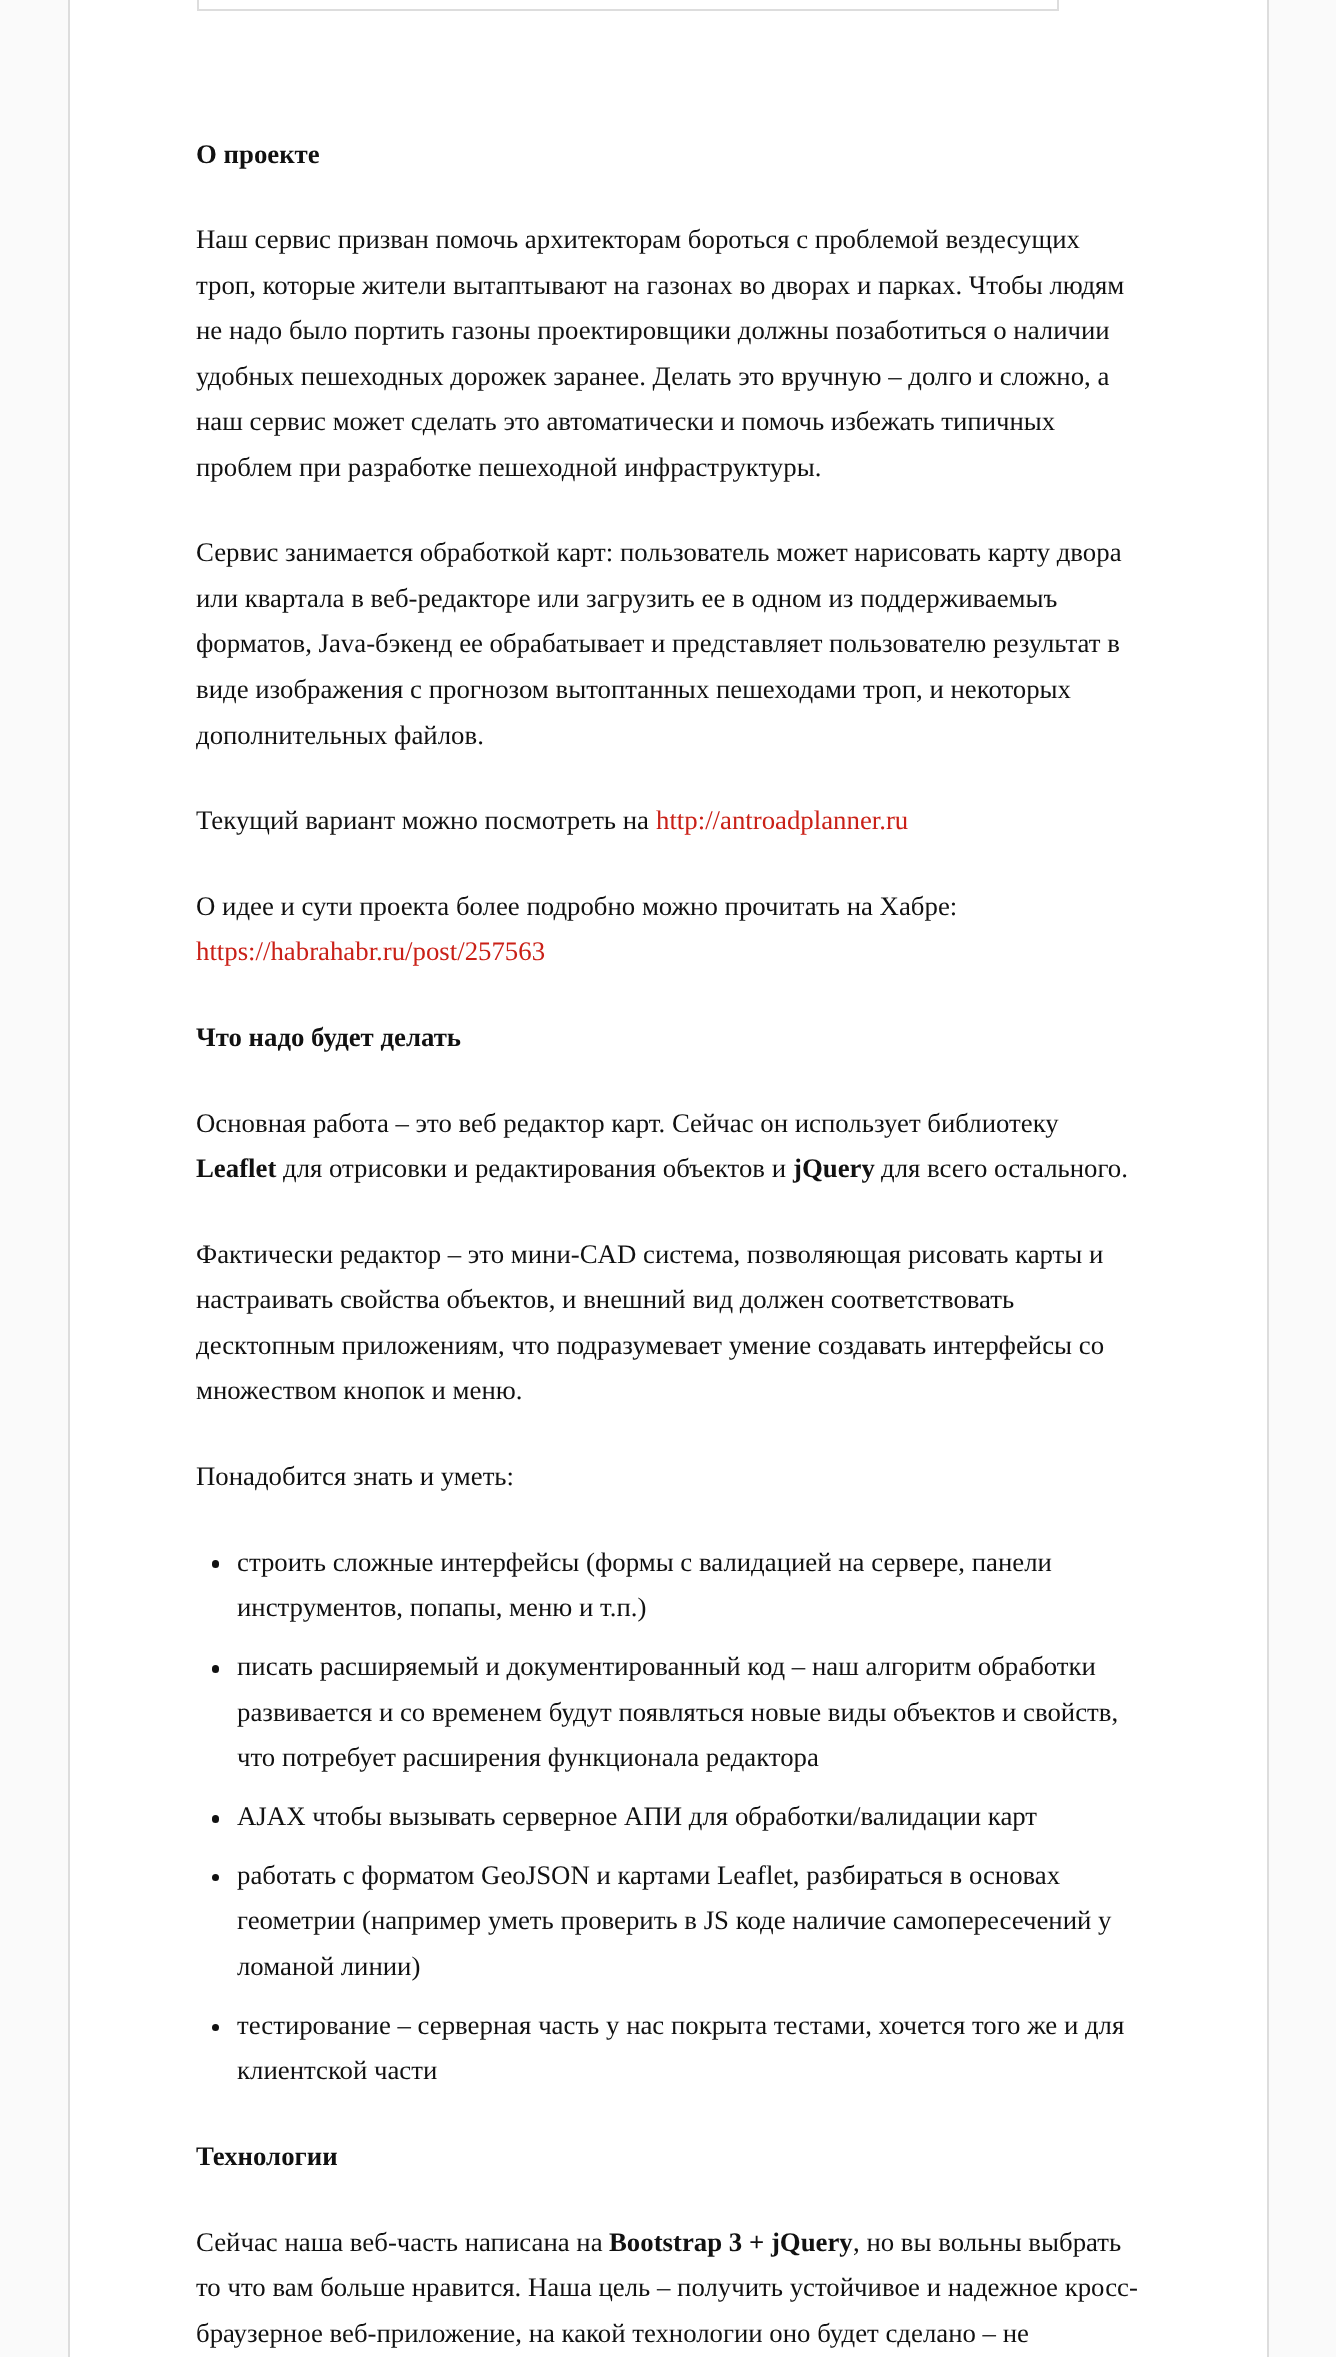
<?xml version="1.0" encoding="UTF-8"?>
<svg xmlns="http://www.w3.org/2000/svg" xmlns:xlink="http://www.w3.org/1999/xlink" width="1336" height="2357">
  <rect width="100%" height="100%" fill="#fafafa" />
  <rect x="69" y="-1" width="1199" height="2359" fill="#ffffff" stroke="#dddddd" stroke-width="2" />
  <rect x="198" y="-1" width="860" height="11" fill="none" stroke="#dddddd" stroke-width="2" />
  <rect x="212" y="1560" width="7" height="8" rx="3.5" fill="#111111" />
  <rect x="212" y="1665" width="7" height="8" rx="3.5" fill="#111111" />
  <rect x="212" y="1815" width="7" height="8" rx="3.5" fill="#111111" />
  <circle cx="215.5" cy="1877.5" r="3.5" fill="#111111" />
  <circle cx="215.5" cy="2027.5" r="3.5" fill="#111111" />
  <text x="196" y="163" style="font-family: Liberation Serif; font-size: 26.8px; font-weight: bold; fill: #111111">О проекте</text>
  <text x="196" y="248" style="font-family: Liberation Serif; font-size: 26.8px; fill: #111111">Наш сервис призван помочь архитекторам бороться с проблемой вездесущих</text>
  <text x="196" y="294" style="font-family: Liberation Serif; font-size: 26.8px; fill: #111111">троп, которые жители вытаптывают на газонах во дворах и парках. Чтобы людям</text>
  <text x="196" y="339" style="font-family: Liberation Serif; font-size: 26.8px; fill: #111111">не надо было портить газоны проектировщики должны позаботиться о наличии</text>
  <text x="196" y="385" style="font-family: Liberation Serif; font-size: 26.8px; fill: #111111">удобных пешеходных дорожек заранее. Делать это вручную – долго и сложно, а</text>
  <text x="196" y="430" style="font-family: Liberation Serif; font-size: 26.8px; fill: #111111">наш сервис может сделать это автоматически и помочь избежать типичных</text>
  <text x="196" y="476" style="font-family: Liberation Serif; font-size: 26.8px; fill: #111111">проблем при разработке пешеходной инфраструктуры.</text>
  <text x="196" y="561" style="font-family: Liberation Serif; font-size: 26.8px; fill: #111111">Сервис занимается обработкой карт: пользователь может нарисовать карту двора</text>
  <text x="196" y="607" style="font-family: Liberation Serif; font-size: 26.8px; fill: #111111">или квартала в веб-редакторе или загрузить ее в одном из поддерживаемыъ</text>
  <text x="196" y="652" style="font-family: Liberation Serif; font-size: 26.8px; fill: #111111">форматов, Java-бэкенд ее обрабатывает и представляет пользователю результат в</text>
  <text x="196" y="698" style="font-family: Liberation Serif; font-size: 26.8px; fill: #111111">виде изображения с прогнозом вытоптанных пешеходами троп, и некоторых</text>
  <text x="196" y="744" style="font-family: Liberation Serif; font-size: 26.8px; fill: #111111">дополнительных файлов.</text>
  <text x="196" y="829" style="font-family: Liberation Serif; font-size: 26.8px; fill: #111111">Текущий вариант можно посмотреть на</text>
  <text x="656" y="829" style="font-family: Liberation Serif; font-size: 26.8px; fill: #ca2017">http://antroadplanner.ru</text>
  <text x="196" y="915" style="font-family: Liberation Serif; font-size: 26.8px; fill: #111111">О идее и сути проекта более подробно можно прочитать на Хабре:</text>
  <text x="196" y="960" style="font-family: Liberation Serif; font-size: 26.8px; fill: #ca2017">https://habrahabr.ru/post/257563</text>
  <text x="196" y="1046" style="font-family: Liberation Serif; font-size: 26.8px; font-weight: bold; fill: #111111">Что надо будет делать</text>
  <text x="196" y="1132" style="font-family: Liberation Serif; font-size: 26.8px; fill: #111111">Основная работа – это веб редактор карт. Сейчас он использует библиотеку</text>
  <text x="196" y="1177" style="font-family: Liberation Serif; font-size: 26.8px; font-weight: bold; fill: #111111">Leaflet</text>
  <text x="283" y="1177" style="font-family: Liberation Serif; font-size: 26.8px; fill: #111111">для отрисовки и редактирования объектов и</text>
  <text x="793" y="1177" style="font-family: Liberation Serif; font-size: 26.8px; font-weight: bold; fill: #111111">jQuery</text>
  <text x="881" y="1177" style="font-family: Liberation Serif; font-size: 26.8px; fill: #111111">для всего остального.</text>
  <text x="196" y="1263" style="font-family: Liberation Serif; font-size: 26.8px; fill: #111111">Фактически редактор – это мини-CAD система, позволяющая рисовать карты и</text>
  <text x="196" y="1308" style="font-family: Liberation Serif; font-size: 26.8px; fill: #111111">настраивать свойства объектов, и внешний вид должен соответствовать</text>
  <text x="196" y="1354" style="font-family: Liberation Serif; font-size: 26.8px; fill: #111111">десктопным приложениям, что подразумевает умение создавать интерфейсы со</text>
  <text x="196" y="1399" style="font-family: Liberation Serif; font-size: 26.8px; fill: #111111">множеством кнопок и меню.</text>
  <text x="196" y="1485" style="font-family: Liberation Serif; font-size: 26.8px; fill: #111111">Понадобится знать и уметь:</text>
  <text x="237" y="1571" style="font-family: Liberation Serif; font-size: 26.8px; fill: #111111">строить сложные интерфейсы (формы с валидацией на сервере, панели</text>
  <text x="237" y="1616" style="font-family: Liberation Serif; font-size: 26.8px; fill: #111111">инструментов, попапы, меню и т.п.)</text>
  <text x="237" y="1675" style="font-family: Liberation Serif; font-size: 26.8px; fill: #111111">писать расширяемый и документированный код – наш алгоритм обработки</text>
  <text x="237" y="1721" style="font-family: Liberation Serif; font-size: 26.8px; fill: #111111">развивается и со временем будут появляться новые виды объектов и свойств,</text>
  <text x="237" y="1766" style="font-family: Liberation Serif; font-size: 26.8px; fill: #111111">что потребует расширения функционала редактора</text>
  <text x="237" y="1825" style="font-family: Liberation Serif; font-size: 26.8px; fill: #111111">AJAX чтобы вызывать серверное АПИ для обработки/валидации карт</text>
  <text x="237" y="1884" style="font-family: Liberation Serif; font-size: 26.8px; fill: #111111">работать с форматом GeoJSON и картами Leaflet, разбираться в основах</text>
  <text x="237" y="1929" style="font-family: Liberation Serif; font-size: 26.8px; fill: #111111">геометрии (например уметь проверить в JS коде наличие самопересечений у</text>
  <text x="237" y="1975" style="font-family: Liberation Serif; font-size: 26.8px; fill: #111111">ломаной линии)</text>
  <text x="237" y="2034" style="font-family: Liberation Serif; font-size: 26.8px; fill: #111111">тестирование – серверная часть у нас покрыта тестами, хочется того же и для</text>
  <text x="237" y="2079" style="font-family: Liberation Serif; font-size: 26.8px; fill: #111111">клиентской части</text>
  <text x="196" y="2165" style="font-family: Liberation Serif; font-size: 26.8px; font-weight: bold; fill: #111111">Технологии</text>
  <text x="196" y="2251" style="font-family: Liberation Serif; font-size: 26.8px; fill: #111111">Сейчас наша веб-часть написана на</text>
  <text x="609" y="2251" style="font-family: Liberation Serif; font-size: 26.8px; font-weight: bold; fill: #111111">Bootstrap 3 + jQuery</text>
  <text x="853" y="2251" style="font-family: Liberation Serif; font-size: 26.8px; fill: #111111">, но вы вольны выбрать</text>
  <text x="196" y="2296" style="font-family: Liberation Serif; font-size: 26.8px; fill: #111111">то что вам больше нравится. Наша цель – получить устойчивое и надежное кросс-</text>
  <text x="196" y="2342" style="font-family: Liberation Serif; font-size: 26.8px; fill: #111111">браузерное веб-приложение, на какой технологии оно будет сделано – не</text>
</svg>
